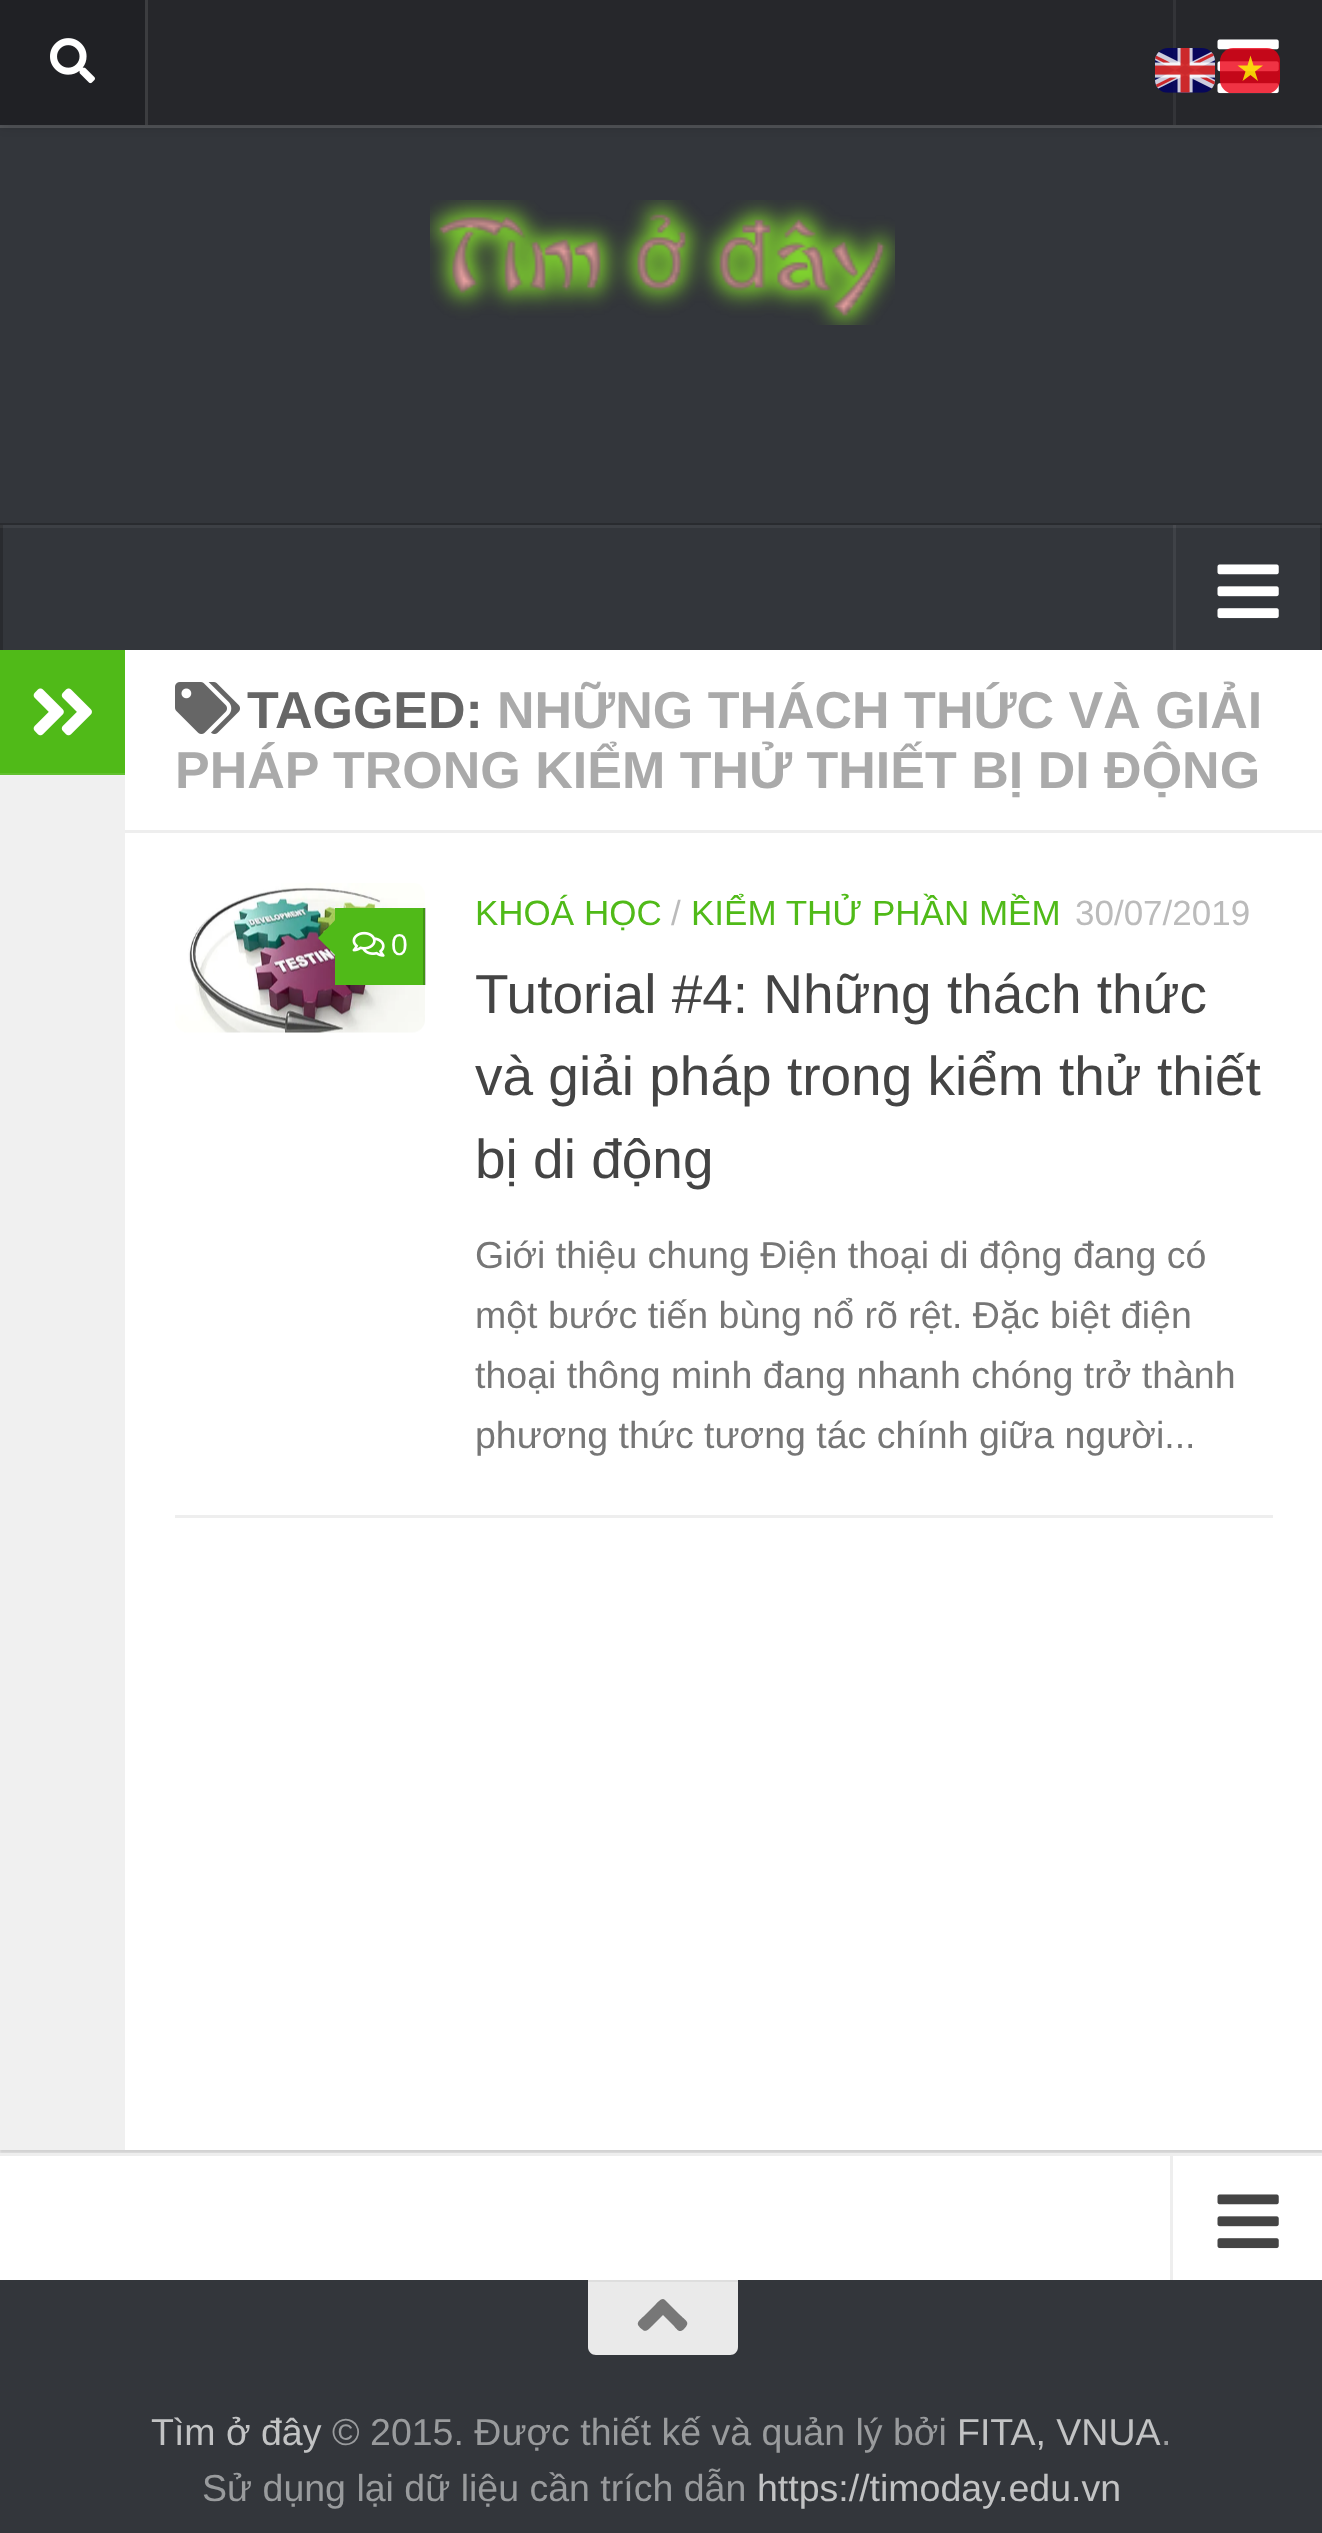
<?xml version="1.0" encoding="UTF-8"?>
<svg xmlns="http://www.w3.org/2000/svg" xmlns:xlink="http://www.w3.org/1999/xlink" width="1322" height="2533">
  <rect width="100%" height="100%" fill="#eaeaea" />
  <rect y="653" width="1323" height="1500" fill="#000000" fill-opacity="0.1" filter="blur(1px)" />
  <rect y="128" width="1322" height="522" fill="#33363b" />
  <path d="M 0 125 v 3 h 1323 v -125 h -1 v 122 z" fill="#525458" />
  <rect width="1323" height="125" fill="#000000" fill-opacity="0.2" filter="blur(6px)" />
  <rect x="148" width="1174" height="125" fill="#26272b" />
  <rect x="1173" width="3" height="125" fill="#333438" />
  <image x="1155" y="48" width="60" height="45" xlink:href="image1.png" />
  <image x="1217" y="39" width="62" height="55" xlink:href="image3.png" />
  <path d="M 1233 48 c -7 0 -13 6 -13 13 v 19 c 0 6 4 11 9 13 h 42 c 5 -2 9 -7 9 -13 v -19 c 0 -7 -6 -13 -13 -13 z" fill="#ec0015" fill-opacity="0.8" />
  <path d="M 1258 81 l -7.5 -6 l -8 6 l 3 -9.5 l -8 -6 h 10 l 3 -10 l 3 10 h 9.5 l -8 6 z" fill="#ffff00" fill-opacity="0.8" fill-rule="evenodd" />
  <rect x="1173" y="525" width="3" height="125" fill="#3f4247" />
  <rect y="525" width="1322" height="3" fill="#3d4045" />
  <rect x="1173" y="525" width="3" height="3" fill="#494b50" />
  <rect x="145" width="3" height="125" fill="#3c3d40" />
  <rect width="145" height="125" fill="#202125" />
  <image x="50" y="38" width="45" height="46" xlink:href="image2.png" />
  <image x="430" y="200" width="465" height="125" xlink:href="image4.png" />
  <path d="M 0 523 v 2 h 1322 v 123 h 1 v -125 z" fill="#292b2f" />
  <rect x="1320" y="525" width="2" height="125" fill="#292b2f" />
  <rect x="1320" y="525" width="2" height="3" fill="#343639" />
  <rect y="525" width="3" height="125" fill="#292b2f" />
  <rect y="525" width="3" height="3" fill="#343639" />
  <image x="1217" y="564" width="62" height="55" xlink:href="image5.png" />
  <rect x="125" y="650" width="1197" height="1500" fill="#ffffff" />
  <rect y="776" width="125" height="1374" fill="#f0f0f0" />
  <rect y="775" width="125" height="1" fill="#f2f2f2" />
  <rect y="650" width="125" height="123" fill="#50ba18" />
  <rect y="773" width="125" height="2" fill="#62c12f" />
  <image x="33" y="688" width="59" height="48" xlink:href="image6.png" />
  <rect x="125" y="830" width="1197" height="3" fill="#eeeeee" />
  <image x="175" y="682" width="65" height="52" xlink:href="image7.png" />
  <rect x="175" y="1515" width="1098" height="3" fill="#eeeeee" />
  <image x="175" y="883" width="250" height="150" xlink:href="image8.png" />
  <rect x="335" y="908" width="90" height="77" fill="#50ba18" />
  <rect x="423" y="908" width="3" height="77" fill="#000000" fill-opacity="0.2" />
  <path d="M 340 915 v 45 l -22 -22 z" fill="#50ba18" />
  <image x="352" y="931" width="33" height="26" xlink:href="image9.png" />
  <rect y="2156" width="1322" height="124" fill="#ffffff" />
  <rect y="2153" width="1322" height="3" fill="#eeeeee" />
  <rect x="1170" y="2155" width="3" height="125" fill="#eeeeee" />
  <image x="1217" y="2194" width="62" height="55" xlink:href="image10.png" />
  <rect y="2280" width="1322" height="253" fill="#33363b" />
  <path d="M 588 2280 h 150 v 67 c 0 4.5 -3.5 8 -8 8 h -134 c -4.5 0 -8 -3.5 -8 -8 z" fill="#eaeaea" />
  <rect x="588" y="2280" width="150" height="2" fill="#dedede" />
  <path d="M 665 2300 l 14 14 c 7 7 12 8 5 15 c -5 5 -7 0 -11 -4 l -10 -10 l -10 10 c -2 2 -7 8 -10 5 c -9 -7 -5 -8 3 -16 l 10 -10 c 2 -2 6 -7 9 -4 z" fill="#777777" />
  <text x="247" y="728" style="font-family: Liberation Sans; font-size: 52px; font-weight: bold; fill: #666666">TAGGED:</text>
  <text x="497" y="728" style="font-family: Liberation Sans; font-size: 52px; font-weight: bold; fill: #aaaaaa">NHỮNG THÁCH THỨC VÀ GIẢI</text>
  <text x="175" y="788" style="font-family: Liberation Sans; font-size: 52px; font-weight: bold; fill: #aaaaaa">PHÁP TRONG KIỂM THỬ THIẾT BỊ DI ĐỘNG</text>
  <text x="391" y="955" style="font-family: Liberation Sans; font-size: 30px; fill: #ffffff">0</text>
  <text x="475" y="925" style="font-family: Liberation Sans; font-size: 35px; fill: #50ba18">KHOÁ HỌC</text>
  <text x="671" y="925" style="font-family: Liberation Sans; font-size: 35px; fill: #bbbbbb">/</text>
  <text x="691" y="925" style="font-family: Liberation Sans; font-size: 35px; fill: #50ba18">KIỂM THỬ PHẦN MỀM</text>
  <text x="1075" y="925" style="font-family: Liberation Sans; font-size: 35px; fill: #bbbbbb">30/07/2019</text>
  <text x="475" y="1013" style="font-family: Liberation Sans; font-size: 55px; fill: #444444">Tutorial #4: Những thách thức</text>
  <text x="475" y="1095" style="font-family: Liberation Sans; font-size: 55px; fill: #444444">và giải pháp trong kiểm thử thiết</text>
  <text x="475" y="1178" style="font-family: Liberation Sans; font-size: 55px; fill: #444444">bị di động</text>
  <text x="475" y="1268" style="font-family: Liberation Sans; font-size: 37.5px; fill: #767676">Giới thiệu chung Điện thoại di động đang có</text>
  <text x="475" y="1328" style="font-family: Liberation Sans; font-size: 37.5px; fill: #767676">một bước tiến bùng nổ rõ rệt. Đặc biệt điện</text>
  <text x="475" y="1388" style="font-family: Liberation Sans; font-size: 37.5px; fill: #767676">thoại thông minh đang nhanh chóng trở thành</text>
  <text x="475" y="1448" style="font-family: Liberation Sans; font-size: 37.5px; fill: #767676">phương thức tương tác chính giữa người...</text>
  <text x="151" y="2445" style="font-family: Liberation Sans; font-size: 37.5px; fill: #c2c3c4">Tìm ở đây</text>
  <text x="332" y="2445" style="font-family: Liberation Sans; font-size: 37.5px; fill: #999b9d">© 2015. Được thiết kế và quản lý bởi</text>
  <text x="957" y="2445" style="font-family: Liberation Sans; font-size: 37.5px; fill: #c2c3c4">FITA, VNUA</text>
  <text x="1161" y="2445" style="font-family: Liberation Sans; font-size: 37.5px; fill: #999b9d">.</text>
  <text x="202" y="2501" style="font-family: Liberation Sans; font-size: 37.5px; fill: #999b9d">Sử dụng lại dữ liệu cần trích dẫn</text>
  <text x="757" y="2501" style="font-family: Liberation Sans; font-size: 37.5px; fill: #c2c3c4">https://timoday.edu.vn</text>
</svg>
